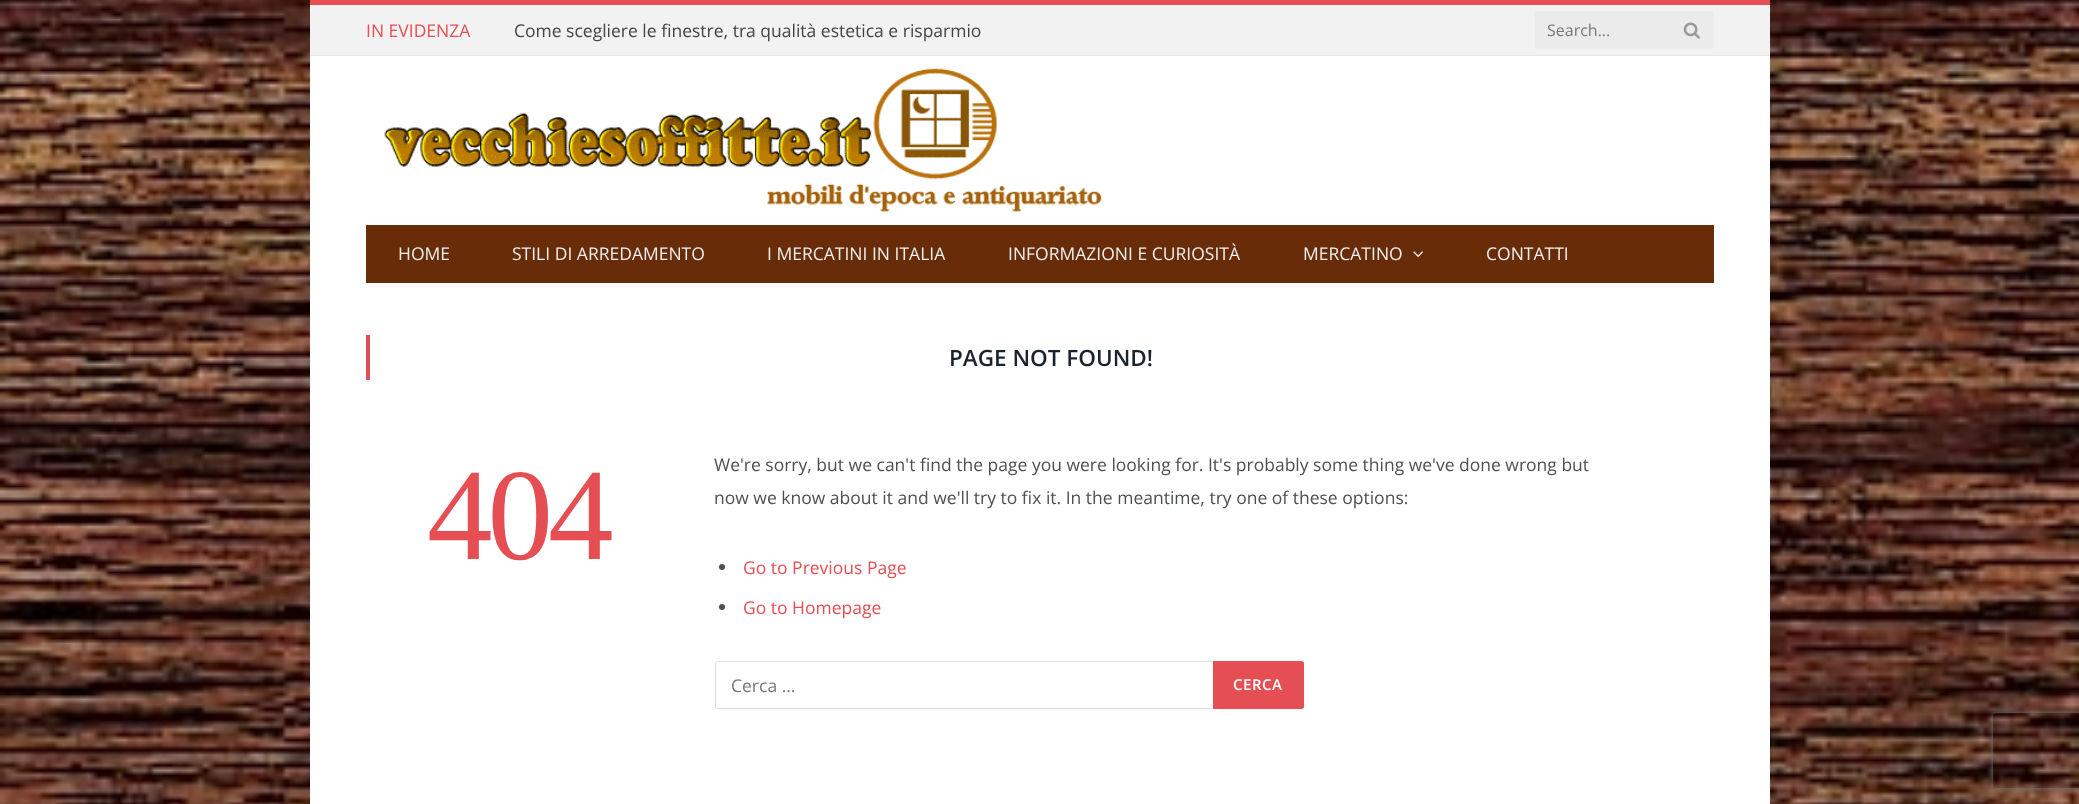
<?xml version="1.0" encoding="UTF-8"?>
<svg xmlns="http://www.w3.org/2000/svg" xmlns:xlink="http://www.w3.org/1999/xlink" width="2079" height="804">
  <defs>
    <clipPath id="clip1"><path d="M 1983 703 h 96 v 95 h -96 z m 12.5 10 h 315 c 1.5 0 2.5 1 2.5 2.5 v 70 c 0 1.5 -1 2.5 -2.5 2.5 h -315 c -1.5 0 -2.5 -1 -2.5 -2.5 v -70 c 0 -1.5 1 -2.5 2.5 -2.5 z" clip-rule="evenodd" /></clipPath>
  </defs>
  <rect width="100%" height="100%" fill="#ffffff" />
  <image x="0" y="0" width="2079" height="804" xlink:href="image1.png" />
  <rect x="310" width="1460" height="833" fill="#000000" fill-opacity="0.08" filter="blur(9.5px)" />
  <rect x="310" y="56" width="1460" height="748" fill="#ffffff" />
  <rect x="310" y="5" width="1460" height="50" fill="#f2f2f2" />
  <rect x="310" width="1460" height="5" fill="#e54e53" />
  <rect x="310" y="55" width="1460" height="1" fill="#e8e8e8" />
  <rect x="1535" y="11" width="179" height="38" rx="2.5" fill="#ebebeb" />
  <image x="1683" y="22" width="17" height="17" xlink:href="image2.png" />
  <image x="384" y="68" width="718" height="144" xlink:href="image3.png" />
  <rect x="366" y="225" width="1348" height="58" fill="#692c08" />
  <image x="1413" y="251" width="10" height="6" xlink:href="image4.png" />
  <rect x="366" y="335" width="4" height="45" fill="#e54e53" />
  <circle cx="722" cy="567" r="3" fill="#4d5053" />
  <circle cx="722" cy="607" r="3" fill="#4d5053" />
  <rect x="720" y="669" width="490" height="37" fill="#000000" fill-opacity="0.1" filter="blur(4.5px)" />
  <rect x="715.5" y="661.5" width="499" height="47" rx="2" fill="#ffffff" stroke="#dddddd" />
  <rect x="1218" y="669" width="81" height="37" fill="#000000" fill-opacity="0.16" filter="blur(4.5px)" />
  <path d="M 1213 661 h 88.5 c 1.5 0 2.5 1 2.5 2.5 v 43 c 0 1.5 -1 2.5 -2.5 2.5 h -88.5 z" fill="#e54e53" />
  <g clip-path="url(#clip1)">
    <rect x="1993" y="713" width="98" height="75" rx="2.5" fill="#808080" filter="blur(3px)" />
  </g>
  <text x="366" y="37" style="font-family: Open Sans; font-size: 17.5px; fill: #e54e53">IN EVIDENZA</text>
  <text x="514" y="37" style="font-family: Open Sans; font-size: 17.5px; fill: #444444">Come scegliere le finestre, tra qualità estetica e risparmio</text>
  <text x="1547" y="36" style="font-family: Open Sans; font-size: 16px; fill: #777777">Search...</text>
  <text x="398" y="260" style="font-family: Open Sans; font-size: 17.5px; fill: #f0f0f0">HOME</text>
  <text x="512" y="260" style="font-family: Open Sans; font-size: 17.5px; fill: #f0f0f0">STILI DI ARREDAMENTO</text>
  <text x="767" y="260" style="font-family: Open Sans; font-size: 17.5px; fill: #f0f0f0">I MERCATINI IN ITALIA</text>
  <text x="1008" y="260" style="font-family: Open Sans; font-size: 17.5px; fill: #f0f0f0">INFORMAZIONI E CURIOSITÀ</text>
  <text x="1303" y="260" style="font-family: Open Sans; font-size: 17.5px; fill: #f0f0f0">MERCATINO</text>
  <text x="1486" y="260" style="font-family: Open Sans; font-size: 17.5px; fill: #f0f0f0">CONTATTI</text>
  <text x="949" y="366" style="font-family: Open Sans; font-size: 22.5px; font-weight: 600; fill: #19232d">PAGE NOT FOUND!</text>
  <text x="427" y="559" style="font-family: Liberation Serif; font-size: 131px; letter-spacing: -5px; fill: #e54e53">404</text>
  <text x="714" y="471" style="font-family: Open Sans; font-size: 17.5px; fill: #4d5053">We're sorry, but we can't find the page you were looking for. It's probably some thing we've done wrong but</text>
  <text x="714" y="504" style="font-family: Open Sans; font-size: 17.5px; fill: #4d5053">now we know about it and we'll try to fix it. In the meantime, try one of these options:</text>
  <text x="743" y="574" style="font-family: Open Sans; font-size: 17.5px; fill: #e54e53">Go to Previous Page</text>
  <text x="743" y="614" style="font-family: Open Sans; font-size: 17.5px; fill: #e54e53">Go to Homepage</text>
  <text x="731" y="692" style="font-family: Open Sans; font-size: 17.5px; fill: #777777">Cerca …</text>
  <text x="1233" y="690" style="font-family: Open Sans; font-size: 15px; font-weight: 600; letter-spacing: 0.5px; fill: #ffffff">CERCA</text>
</svg>
